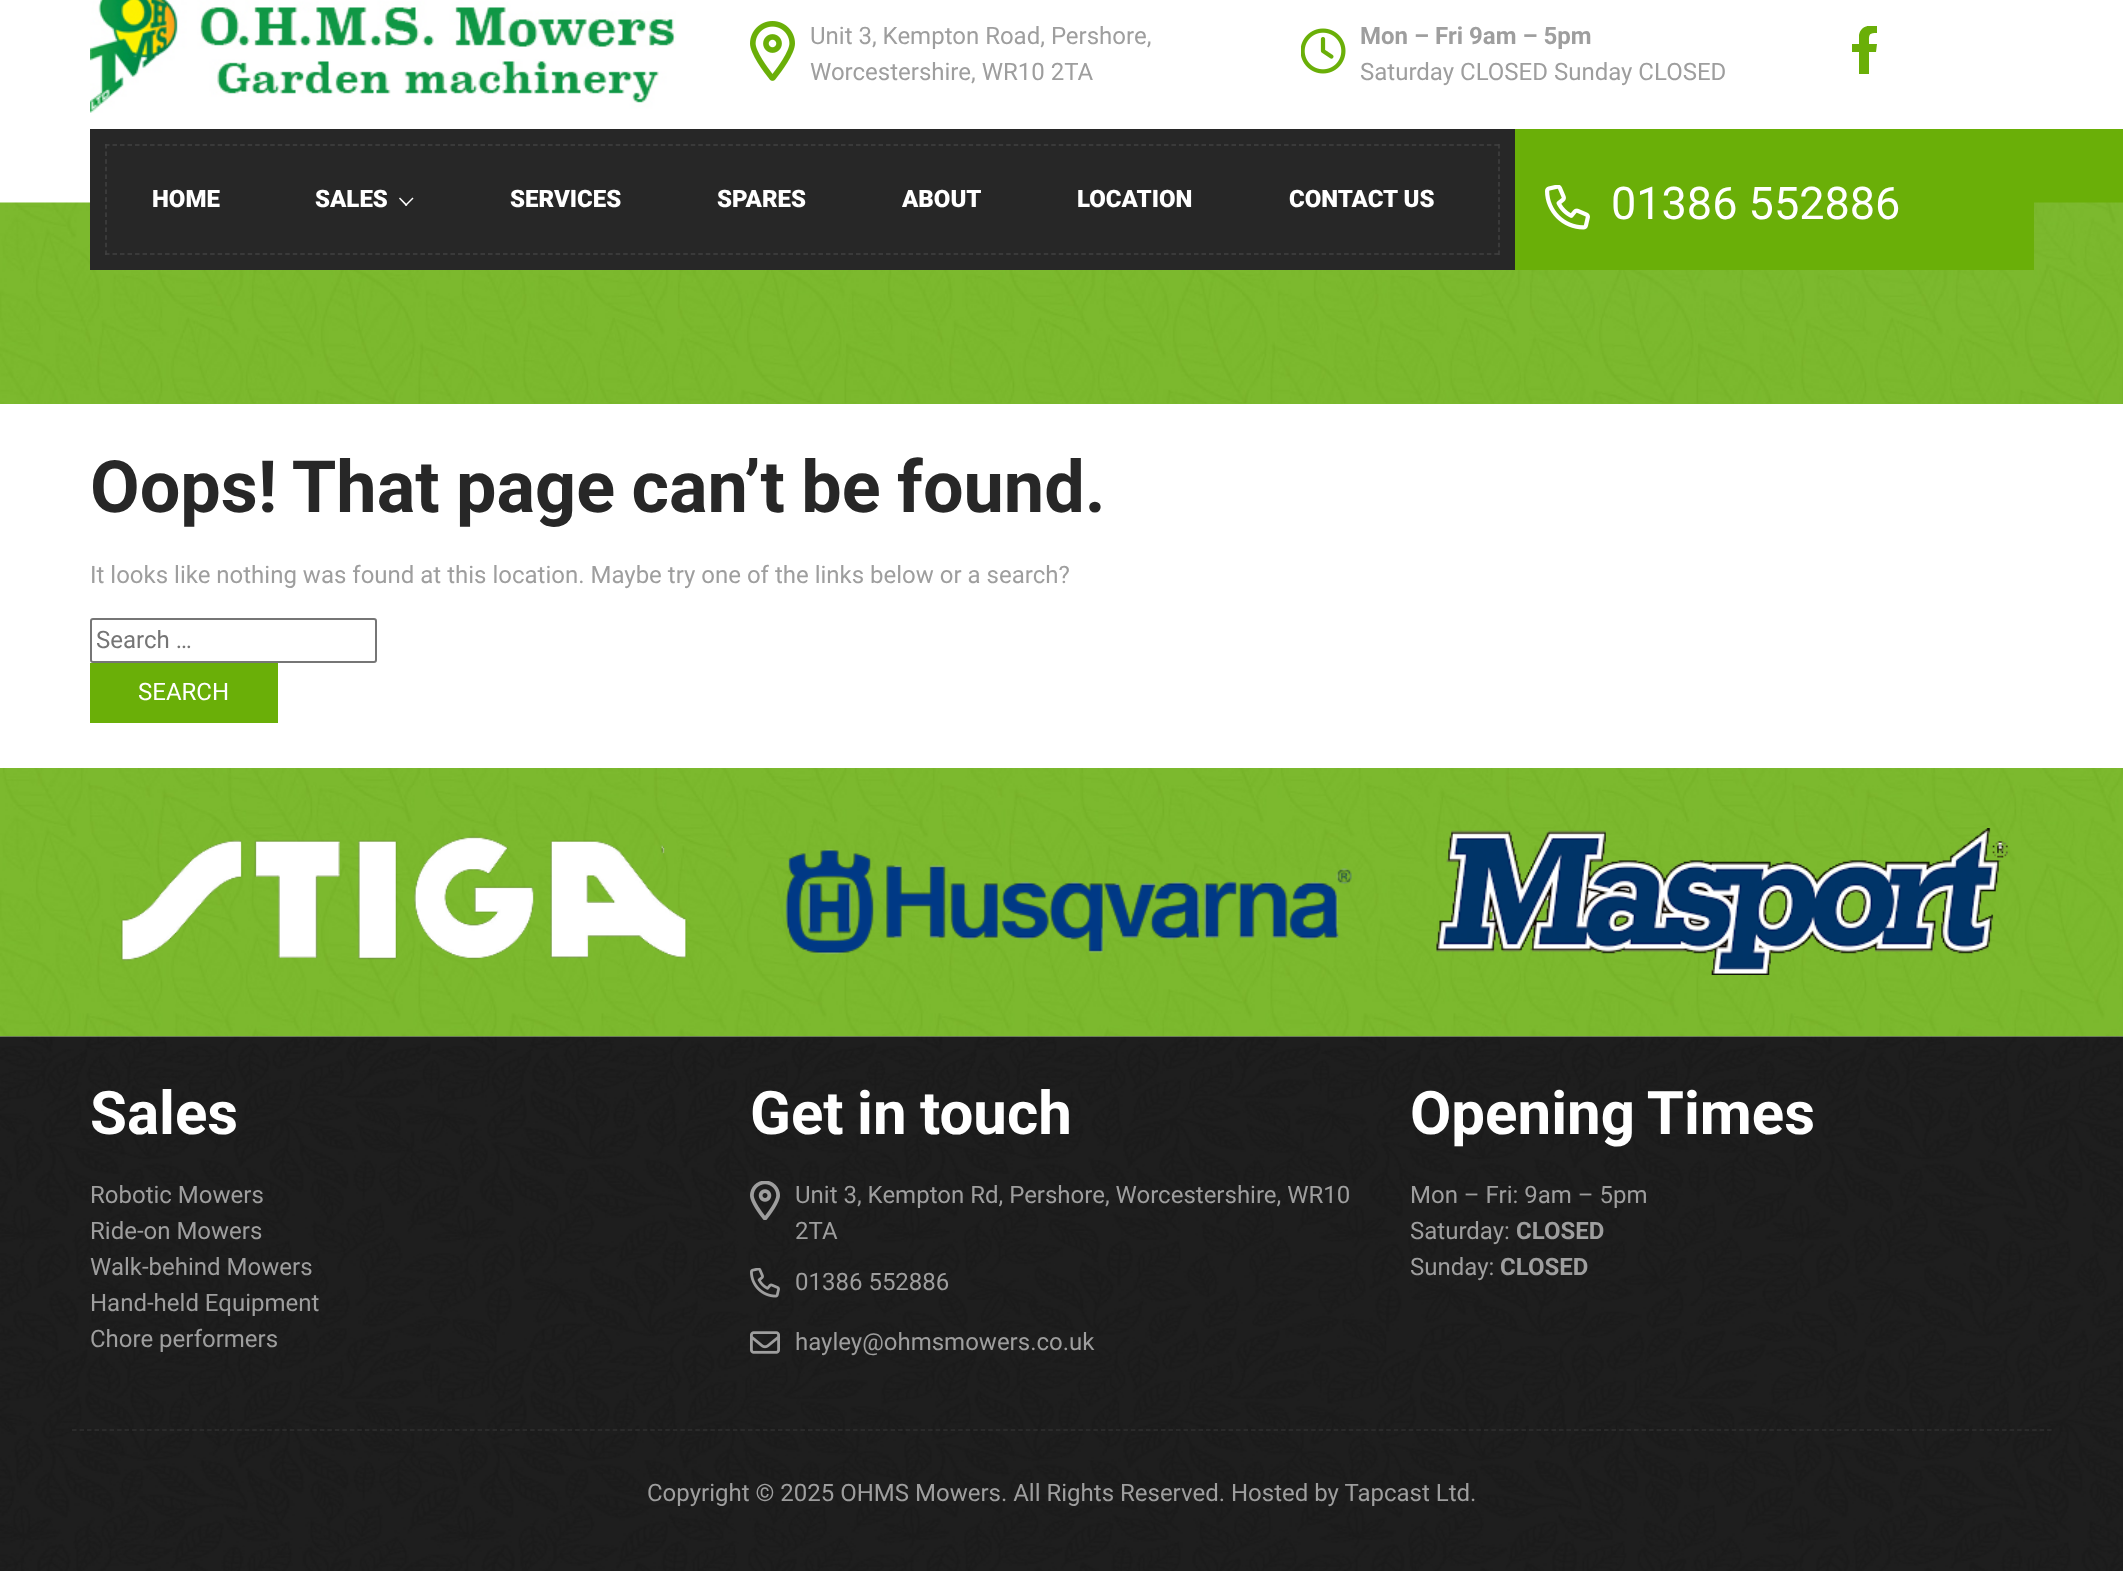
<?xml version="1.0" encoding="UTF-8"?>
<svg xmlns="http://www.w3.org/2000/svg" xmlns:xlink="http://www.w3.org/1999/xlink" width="2123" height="1571">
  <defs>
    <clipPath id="clip1"><rect x="1850" y="26" width="30" height="48" /></clipPath>
  </defs>
  <rect width="100%" height="100%" fill="#ffffff" />
  <image x="90" y="0" width="586" height="113" xlink:href="image1.png" />
  <image x="750" y="21" width="45" height="60" xlink:href="image2.png" />
  <image x="1301" y="28" width="45" height="46" xlink:href="image3.png" />
  <g clip-path="url(#clip1)">
    <path d="M 1876 52 l 1 -8 h -8 c 0 -9 -1 -11 8 -11 v -7 c -7 -1 -16 -1 -18 9 v 9 h -7 v 8 h 7 v 22 h 10 v -22 z" fill="#6aaf08" />
  </g>
  <rect x="2034" y="129" width="89" height="74" fill="#6aaf08" />
  <rect y="403" width="2123" height="1" fill="#7bb82e" />
  <image x="0" y="202" width="2123" height="202" xlink:href="image5.png" />
  <rect x="90" y="129" width="1425" height="141" fill="#272727" />
  <path d="M 105 145 h 1395" fill="none" stroke="#424242" stroke-width="1.5" stroke-dasharray="4.5 3.01" />
  <path d="M 1499 144 v 111" fill="none" stroke="#424242" stroke-width="1.5" stroke-dasharray="4.5 3.1" />
  <path d="M 105 254 h 1395" fill="none" stroke="#424242" stroke-width="1.5" stroke-dasharray="4.5 3.01" />
  <path d="M 106 144 v 111" fill="none" stroke="#424242" stroke-width="1.5" stroke-dasharray="4.5 3.1" />
  <path d="M 412.5 197.5 l 1 1 l -7.5 7.5 l -1 -1 z" fill="#ffffff" />
  <path d="M 400 197.5 l 7.5 7.5 l -1.5 1 l -7 -7.5 z" fill="#ffffff" />
  <rect x="1515" y="129" width="519" height="141" fill="#6aaf08" />
  <image x="1545" y="185" width="45" height="45" xlink:href="image4.png" />
  <rect x="91" y="619" width="285" height="43" rx="2" fill="none" stroke="#767676" stroke-width="2" />
  <rect x="90" y="663" width="188" height="60" fill="#6aaf08" />
  <image x="0" y="768" width="2123" height="269" xlink:href="image6.png" />
  <image x="121" y="836" width="566" height="125" xlink:href="image7.png" />
  <image x="785" y="849" width="567" height="106" xlink:href="image8.png" />
  <image x="1436" y="828" width="572" height="147" xlink:href="image9.png" />
  <image x="0" y="1036" width="2123" height="535" xlink:href="image10.png" />
  <image x="750" y="1181" width="30" height="39" xlink:href="image11.png" />
  <image x="750" y="1268" width="30" height="30" xlink:href="image12.png" />
  <image x="750" y="1331" width="30" height="23" xlink:href="image13.png" />
  <path d="M 72 1430 h 1980" fill="none" stroke="#303030" stroke-width="1.5" stroke-dasharray="4.5 3.01" />
  <text x="810" y="44" style="font-family: Roboto; font-size: 24px; fill: #9e9e9e">Unit 3, Kempton Road, Pershore,</text>
  <text x="810" y="80" style="font-family: Roboto; font-size: 24px; fill: #9e9e9e">Worcestershire, WR10 2TA</text>
  <text x="1360" y="44" style="font-family: Roboto; font-size: 24px; font-weight: bold; fill: #9e9e9e">Mon – Fri 9am – 5pm</text>
  <text x="1360" y="80" style="font-family: Roboto; font-size: 24px; fill: #9e9e9e">Saturday CLOSED Sunday CLOSED</text>
  <text x="152" y="207" style="font-family: Roboto; font-size: 24px; font-weight: 900; fill: #ffffff">HOME</text>
  <text x="315" y="207" style="font-family: Roboto; font-size: 24px; font-weight: 900; fill: #ffffff">SALES</text>
  <text x="510" y="207" style="font-family: Roboto; font-size: 24px; font-weight: 900; fill: #ffffff">SERVICES</text>
  <text x="717" y="207" style="font-family: Roboto; font-size: 24px; font-weight: 900; fill: #ffffff">SPARES</text>
  <text x="902" y="207" style="font-family: Roboto; font-size: 24px; font-weight: 900; fill: #ffffff">ABOUT</text>
  <text x="1077" y="207" style="font-family: Roboto; font-size: 24px; font-weight: 900; fill: #ffffff">LOCATION</text>
  <text x="1289" y="207" style="font-family: Roboto; font-size: 24px; font-weight: 900; fill: #ffffff">CONTACT US</text>
  <text x="1611" y="219" style="font-family: Roboto; font-size: 45px; fill: #ffffff">01386 552886</text>
  <text x="90" y="512" word-spacing="-1.5" style="font-family: Roboto; font-size: 72px; font-weight: bold; fill: #272727">Oops! That page can’t be found.</text>
  <text x="90" y="583" style="font-family: Roboto; font-size: 24px; fill: #9e9e9e">It looks like nothing was found at this location. Maybe try one of the links below or a search?</text>
  <text x="96" y="648" style="font-family: Roboto; font-size: 24px; fill: #757575">Search …</text>
  <text x="138" y="700" style="font-family: Roboto; font-size: 24px; fill: #ffffff">SEARCH</text>
  <text x="90" y="1134" style="font-family: Roboto; font-size: 60px; font-weight: bold; fill: #ffffff">Sales</text>
  <text x="90" y="1203" style="font-family: Roboto; font-size: 24px; fill: #9e9e9e">Robotic Mowers</text>
  <text x="90" y="1239" style="font-family: Roboto; font-size: 24px; fill: #9e9e9e">Ride-on Mowers</text>
  <text x="90" y="1275" style="font-family: Roboto; font-size: 24px; fill: #9e9e9e">Walk-behind Mowers</text>
  <text x="90" y="1311" style="font-family: Roboto; font-size: 24px; fill: #9e9e9e">Hand-held Equipment</text>
  <text x="90" y="1347" style="font-family: Roboto; font-size: 24px; fill: #9e9e9e">Chore performers</text>
  <text x="750" y="1134" word-spacing="-1.5" style="font-family: Roboto; font-size: 60px; font-weight: bold; fill: #ffffff">Get in touch</text>
  <text x="795" y="1203" style="font-family: Roboto; font-size: 24px; fill: #9e9e9e">Unit 3, Kempton Rd, Pershore, Worcestershire, WR10</text>
  <text x="795" y="1239" style="font-family: Roboto; font-size: 24px; fill: #9e9e9e">2TA</text>
  <text x="795" y="1290" style="font-family: Roboto; font-size: 24px; fill: #9e9e9e">01386 552886</text>
  <text x="795" y="1350" style="font-family: Roboto; font-size: 24px; fill: #9e9e9e">hayley@ohmsmowers.co.uk</text>
  <text x="1410" y="1134" word-spacing="-1.5" style="font-family: Roboto; font-size: 60px; font-weight: bold; fill: #ffffff">Opening Times</text>
  <text x="1410" y="1203" style="font-family: Roboto; font-size: 24px; fill: #9e9e9e">Mon – Fri: 9am – 5pm</text>
  <text x="1410" y="1239" style="font-family: Roboto; font-size: 24px; fill: #9e9e9e">Saturday:</text>
  <text x="1516" y="1239" style="font-family: Roboto; font-size: 24px; font-weight: bold; fill: #9e9e9e">CLOSED</text>
  <text x="1410" y="1275" style="font-family: Roboto; font-size: 24px; fill: #9e9e9e">Sunday:</text>
  <text x="1500" y="1275" style="font-family: Roboto; font-size: 24px; font-weight: bold; fill: #9e9e9e">CLOSED</text>
  <text x="647" y="1501" style="font-family: Roboto; font-size: 24px; fill: #9e9e9e">Copyright © 2025 OHMS Mowers. All Rights Reserved. Hosted by Tapcast Ltd.</text>
</svg>
